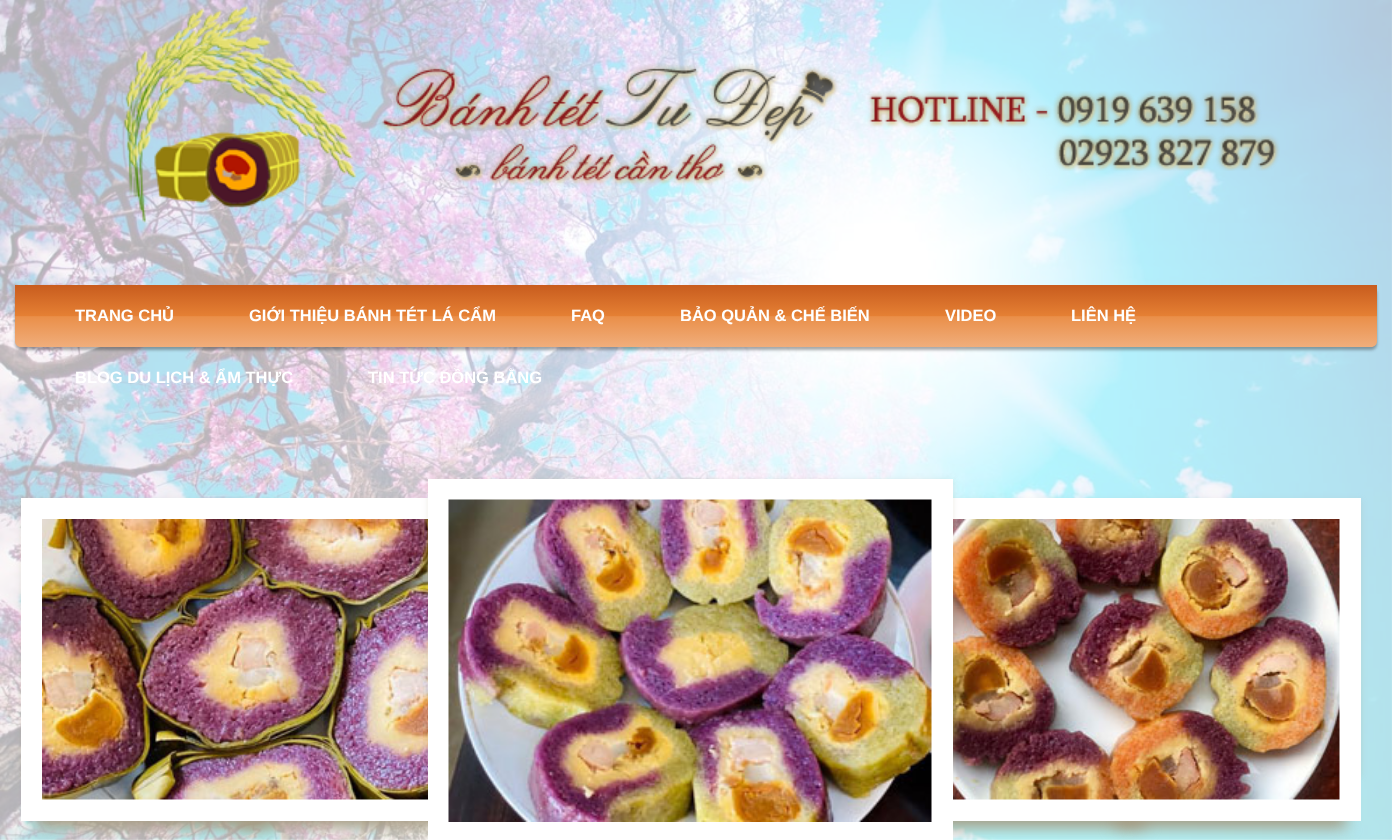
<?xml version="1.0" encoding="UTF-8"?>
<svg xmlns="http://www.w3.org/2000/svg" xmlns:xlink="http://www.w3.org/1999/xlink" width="1392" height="840">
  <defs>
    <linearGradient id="g1" gradientUnits="userSpaceOnUse" x1="696" y1="285" x2="696" y2="347"><stop offset="0" stop-color="#c85c1e" /><stop offset="0.5" stop-color="#e58034" /><stop offset="0.51" stop-color="#ea8f49" /><stop offset="1" stop-color="#f0ae7c" /></linearGradient>
  </defs>
  <rect width="100%" height="100%" fill="#ffffff" />
  <image x="0" y="0" width="1392" height="840" xlink:href="image1.png" />
  <rect width="1392" height="255" fill="#ffffff" fill-opacity="0.7" />
  <image x="123" y="6" width="716" height="217" xlink:href="image2.png" />
  <image x="867" y="91" width="413" height="80" xlink:href="image3.png" />
  <rect y="255" width="1392" height="183" fill="#ffffff" fill-opacity="0.7" />
  <rect x="15" y="288" width="1362" height="62" rx="6" fill="#2c2c2c" fill-opacity="0.4" filter="blur(1.5px)" />
  <path d="M 15 285 h 1362 v 56 c 0 3.5 -2.5 6 -6 6 h -1350 c -3.5 0 -6 -2.5 -6 -6 z" fill="url(#g1)" />
  <rect y="438" width="1392" height="402" fill="#ffffff" fill-opacity="0.7" />
  <rect x="21" y="500" width="462" height="277" fill="#a59c83" fill-opacity="0.2" filter="blur(3px)" />
  <rect x="36" y="689" width="231" height="139" fill="#a59c83" filter="blur(7.5px)" />
  <rect x="237" y="689" width="231" height="139" fill="#a59c83" filter="blur(7.5px)" />
  <rect x="21" y="498" width="407" height="323" fill="#ffffff" />
  <image x="42" y="519" width="386" height="281" xlink:href="image4.png" />
  <rect x="899" y="500" width="462" height="277" fill="#a59c83" fill-opacity="0.2" filter="blur(3px)" />
  <rect x="914" y="689" width="231" height="139" fill="#a59c83" filter="blur(7.5px)" />
  <rect x="1115" y="689" width="231" height="139" fill="#a59c83" filter="blur(7.5px)" />
  <rect x="953" y="498" width="408" height="323" fill="#ffffff" />
  <image x="953" y="519" width="387" height="281" xlink:href="image6.png" />
  <rect x="428" y="480" width="525" height="315" fill="#a59c83" fill-opacity="0.2" filter="blur(3px)" />
  <rect x="428" y="479" width="525" height="361" fill="#ffffff" />
  <image x="448" y="499" width="484" height="323" xlink:href="image5.png" />
  <text x="75" y="321" style="font-family: Liberation Sans; font-size: 16.5px; font-weight: bold; fill: #ffffff">TRANG CHỦ</text>
  <text x="249" y="321" style="font-family: Liberation Sans; font-size: 16.5px; font-weight: bold; fill: #ffffff">GIỚI THIỆU BÁNH TÉT LÁ CẨM</text>
  <text x="571" y="321" style="font-family: Liberation Sans; font-size: 16.5px; font-weight: bold; fill: #ffffff">FAQ</text>
  <text x="680" y="321" style="font-family: Liberation Sans; font-size: 16.5px; font-weight: bold; fill: #ffffff">BẢO QUẢN &amp; CHẾ BIẾN</text>
  <text x="945" y="321" style="font-family: Liberation Sans; font-size: 16.5px; font-weight: bold; fill: #ffffff">VIDEO</text>
  <text x="1071" y="321" style="font-family: Liberation Sans; font-size: 16.5px; font-weight: bold; fill: #ffffff">LIÊN HỆ</text>
  <text x="75" y="383" style="font-family: Liberation Sans; font-size: 16.5px; font-weight: bold; fill: #ffffff">BLOG DU LỊCH &amp; ẨM THỰC</text>
  <text x="368" y="383" style="font-family: Liberation Sans; font-size: 16.5px; font-weight: bold; fill: #ffffff">TIN TỨC ĐỒNG BẰNG</text>
</svg>
